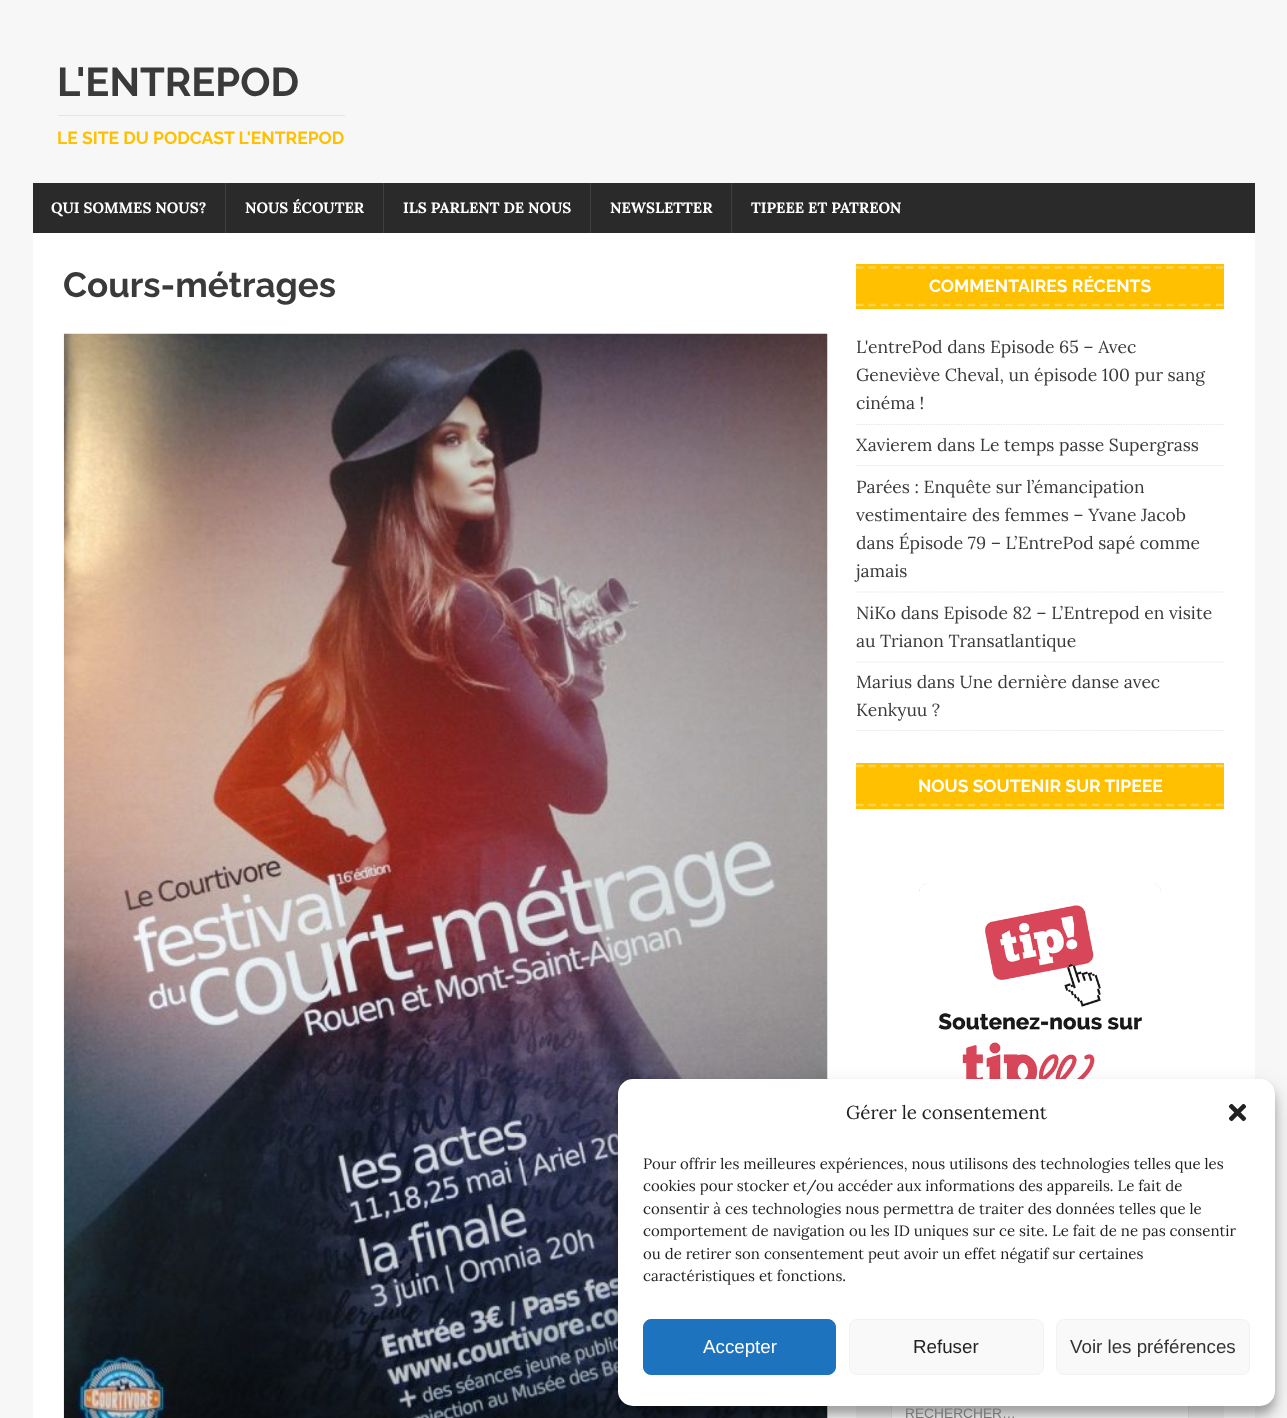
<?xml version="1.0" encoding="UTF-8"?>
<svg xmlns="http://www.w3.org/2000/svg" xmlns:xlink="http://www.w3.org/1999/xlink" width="1287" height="1418">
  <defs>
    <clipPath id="clip1"><rect x="856" y="264" width="368" height="467" /></clipPath>
  </defs>
  <rect width="100%" height="100%" fill="#f7f7f7" />
  <rect x="58" y="115" width="287" height="1" fill="#e5e5e5" />
  <rect x="33" y="183" width="1222" height="50" fill="#2a2a2a" />
  <rect x="225" y="183" width="1" height="50" fill="#3f3f3f" />
  <rect x="383" y="183" width="1" height="50" fill="#3f3f3f" />
  <rect x="590" y="183" width="1" height="50" fill="#3f3f3f" />
  <rect x="731" y="183" width="1" height="50" fill="#3f3f3f" />
  <rect x="33" y="233" width="1222" height="1185" fill="#ffffff" />
  <image x="63" y="333" width="765" height="1085" xlink:href="image1.png" />
  <rect x="856" y="264" width="368" height="45" fill="#ffc001" />
  <path d="M 856 267.5 h 368" fill="none" stroke="#ffd34d" stroke-width="2.5" stroke-dasharray="7.5 4.91" />
  <path d="M 856 305 h 368" fill="none" stroke="#ffd34d" stroke-width="2.5" stroke-dasharray="7.5 4.91" />
  <path d="M 856 424.5 h 368" fill="none" stroke="#e5e5e5" stroke-width="1.2" stroke-dasharray="1.25 1.25" />
  <path d="M 856 465.5 h 368" fill="none" stroke="#e5e5e5" stroke-width="1.2" stroke-dasharray="1.25 1.25" />
  <path d="M 856 592 h 368" fill="none" stroke="#e5e5e5" stroke-width="1.2" stroke-dasharray="1.25 1.25" />
  <path d="M 856 662 h 368" fill="none" stroke="#e5e5e5" stroke-width="1.2" stroke-dasharray="1.25 1.25" />
  <g clip-path="url(#clip1)">
    <path d="M 856 730.5 h 368" fill="none" stroke="#e5e5e5" stroke-width="1.2" stroke-dasharray="1.25 1.25" />
  </g>
  <rect x="856" y="763" width="368" height="46" fill="#ffc001" />
  <path d="M 856 766 h 368" fill="none" stroke="#ffd34d" stroke-width="2.5" stroke-dasharray="7.5 4.91" />
  <path d="M 856 805 h 368" fill="none" stroke="#ffd34d" stroke-width="2.5" stroke-dasharray="7.5 4.91" />
  <image x="919" y="883" width="242" height="196" xlink:href="image2.png" />
  <rect x="856" y="1406" width="368" height="12" fill="#f5f5f5" />
  <rect x="892" y="1406" width="296" height="12" fill="#ffffff" />
  <rect x="891.5" y="1391.5" width="297" height="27" fill="none" stroke="#ebebeb" />
  <rect x="618" y="1086" width="657" height="328" rx="15" fill="#000000" fill-opacity="0.23" filter="blur(4px)" />
  <rect x="618" y="1091" width="657" height="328" rx="15" fill="#000000" fill-opacity="0.19" filter="blur(12.5px)" />
  <rect x="618" y="1079" width="657" height="327" rx="15" fill="#ffffff" />
  <image x="1228" y="1103" width="19" height="19" xlink:href="image3.png" />
  <rect x="643.5" y="1319.5" width="192" height="55" rx="7.5" fill="#1e73be" stroke="#1e73be" />
  <rect x="849.5" y="1319.5" width="194" height="55" rx="7.5" fill="#f9f9f9" stroke="#f2f2f2" />
  <rect x="1056.5" y="1319.5" width="193" height="55" rx="7.5" fill="#f9f9f9" stroke="#f2f2f2" />
  <text x="57" y="96" style="font-family: Raleway; font-size: 40px; font-weight: bold; fill: #3a3a3a">L'ENTREPOD</text>
  <text x="57" y="144" style="font-family: Raleway; font-size: 17.5px; font-weight: bold; fill: #ffc001">LE SITE DU PODCAST L'ENTREPOD</text>
  <text x="51" y="213" style="font-family: Lora; font-size: 15px; font-weight: bold; fill: #ffffff">QUI SOMMES NOUS?</text>
  <text x="245" y="213" style="font-family: Lora; font-size: 15px; font-weight: bold; fill: #ffffff">NOUS ÉCOUTER</text>
  <text x="403" y="213" style="font-family: Lora; font-size: 15px; font-weight: bold; fill: #ffffff">ILS PARLENT DE NOUS</text>
  <text x="610" y="213" style="font-family: Lora; font-size: 15px; font-weight: bold; fill: #ffffff">NEWSLETTER</text>
  <text x="751" y="213" style="font-family: Lora; font-size: 15px; font-weight: bold; fill: #ffffff">TIPEEE ET PATREON</text>
  <text x="63" y="297" style="font-family: Raleway; font-size: 35px; font-weight: bold; fill: #3a3a3a">Cours-métrages</text>
  <text x="929" y="292" style="font-family: Raleway; font-size: 17.5px; font-weight: bold; fill: #ffffff">COMMENTAIRES RÉCENTS</text>
  <text x="856" y="353" style="font-family: Lora; font-size: 17.5px; fill: #3a3a3a">L'entrePod dans Episode 65 – Avec</text>
  <text x="856" y="381" style="font-family: Lora; font-size: 17.5px; fill: #3a3a3a">Geneviève Cheval, un épisode 100 pur sang</text>
  <text x="856" y="409" style="font-family: Lora; font-size: 17.5px; fill: #3a3a3a">cinéma !</text>
  <text x="856" y="451" style="font-family: Lora; font-size: 17.5px; fill: #3a3a3a">Xavierem dans Le temps passe Supergrass</text>
  <text x="856" y="493" style="font-family: Lora; font-size: 17.5px; fill: #3a3a3a">Parées : Enquête sur l’émancipation</text>
  <text x="856" y="521" style="font-family: Lora; font-size: 17.5px; fill: #3a3a3a">vestimentaire des femmes – Yvane Jacob</text>
  <text x="856" y="549" style="font-family: Lora; font-size: 17.5px; fill: #3a3a3a">dans Épisode 79 – L’EntrePod sapé comme</text>
  <text x="856" y="577" style="font-family: Lora; font-size: 17.5px; fill: #3a3a3a">jamais</text>
  <text x="856" y="619" style="font-family: Lora; font-size: 17.5px; fill: #3a3a3a">NiKo dans Episode 82 – L’Entrepod en visite</text>
  <text x="856" y="647" style="font-family: Lora; font-size: 17.5px; fill: #3a3a3a">au Trianon Transatlantique</text>
  <text x="856" y="688" style="font-family: Lora; font-size: 17.5px; fill: #3a3a3a">Marius dans Une dernière danse avec</text>
  <text x="856" y="716" style="font-family: Lora; font-size: 17.5px; fill: #3a3a3a">Kenkyuu ?</text>
  <text x="918" y="792" style="font-family: Raleway; font-size: 17.5px; font-weight: bold; fill: #ffffff">NOUS SOUTENIR SUR TIPEEE</text>
  <text x="905" y="1418" style="font-family: Liberation Sans; font-size: 13.75px; fill: #757575">RECHERCHER…</text>
  <text x="846" y="1119" style="font-family: Lora; font-size: 18.75px; fill: #222222">Gérer le consentement</text>
  <text x="643" y="1169" style="font-family: Lora; font-size: 15px; fill: #222222">Pour offrir les meilleures expériences, nous utilisons des technologies telles que les</text>
  <text x="643" y="1191" style="font-family: Lora; font-size: 15px; fill: #222222">cookies pour stocker et/ou accéder aux informations des appareils. Le fait de</text>
  <text x="643" y="1214" style="font-family: Lora; font-size: 15px; fill: #222222">consentir à ces technologies nous permettra de traiter des données telles que le</text>
  <text x="643" y="1236" style="font-family: Lora; font-size: 15px; fill: #222222">comportement de navigation ou les ID uniques sur ce site. Le fait de ne pas consentir</text>
  <text x="643" y="1259" style="font-family: Lora; font-size: 15px; fill: #222222">ou de retirer son consentement peut avoir un effet négatif sur certaines</text>
  <text x="643" y="1281" style="font-family: Lora; font-size: 15px; fill: #222222">caractéristiques et fonctions.</text>
  <text x="703" y="1353" style="font-family: Liberation Sans; font-size: 18.75px; fill: #ffffff">Accepter</text>
  <text x="913" y="1353" style="font-family: Liberation Sans; font-size: 18.75px; fill: #222222">Refuser</text>
  <text x="1070" y="1353" style="font-family: Liberation Sans; font-size: 18.75px; fill: #333333">Voir les préférences</text>
</svg>
